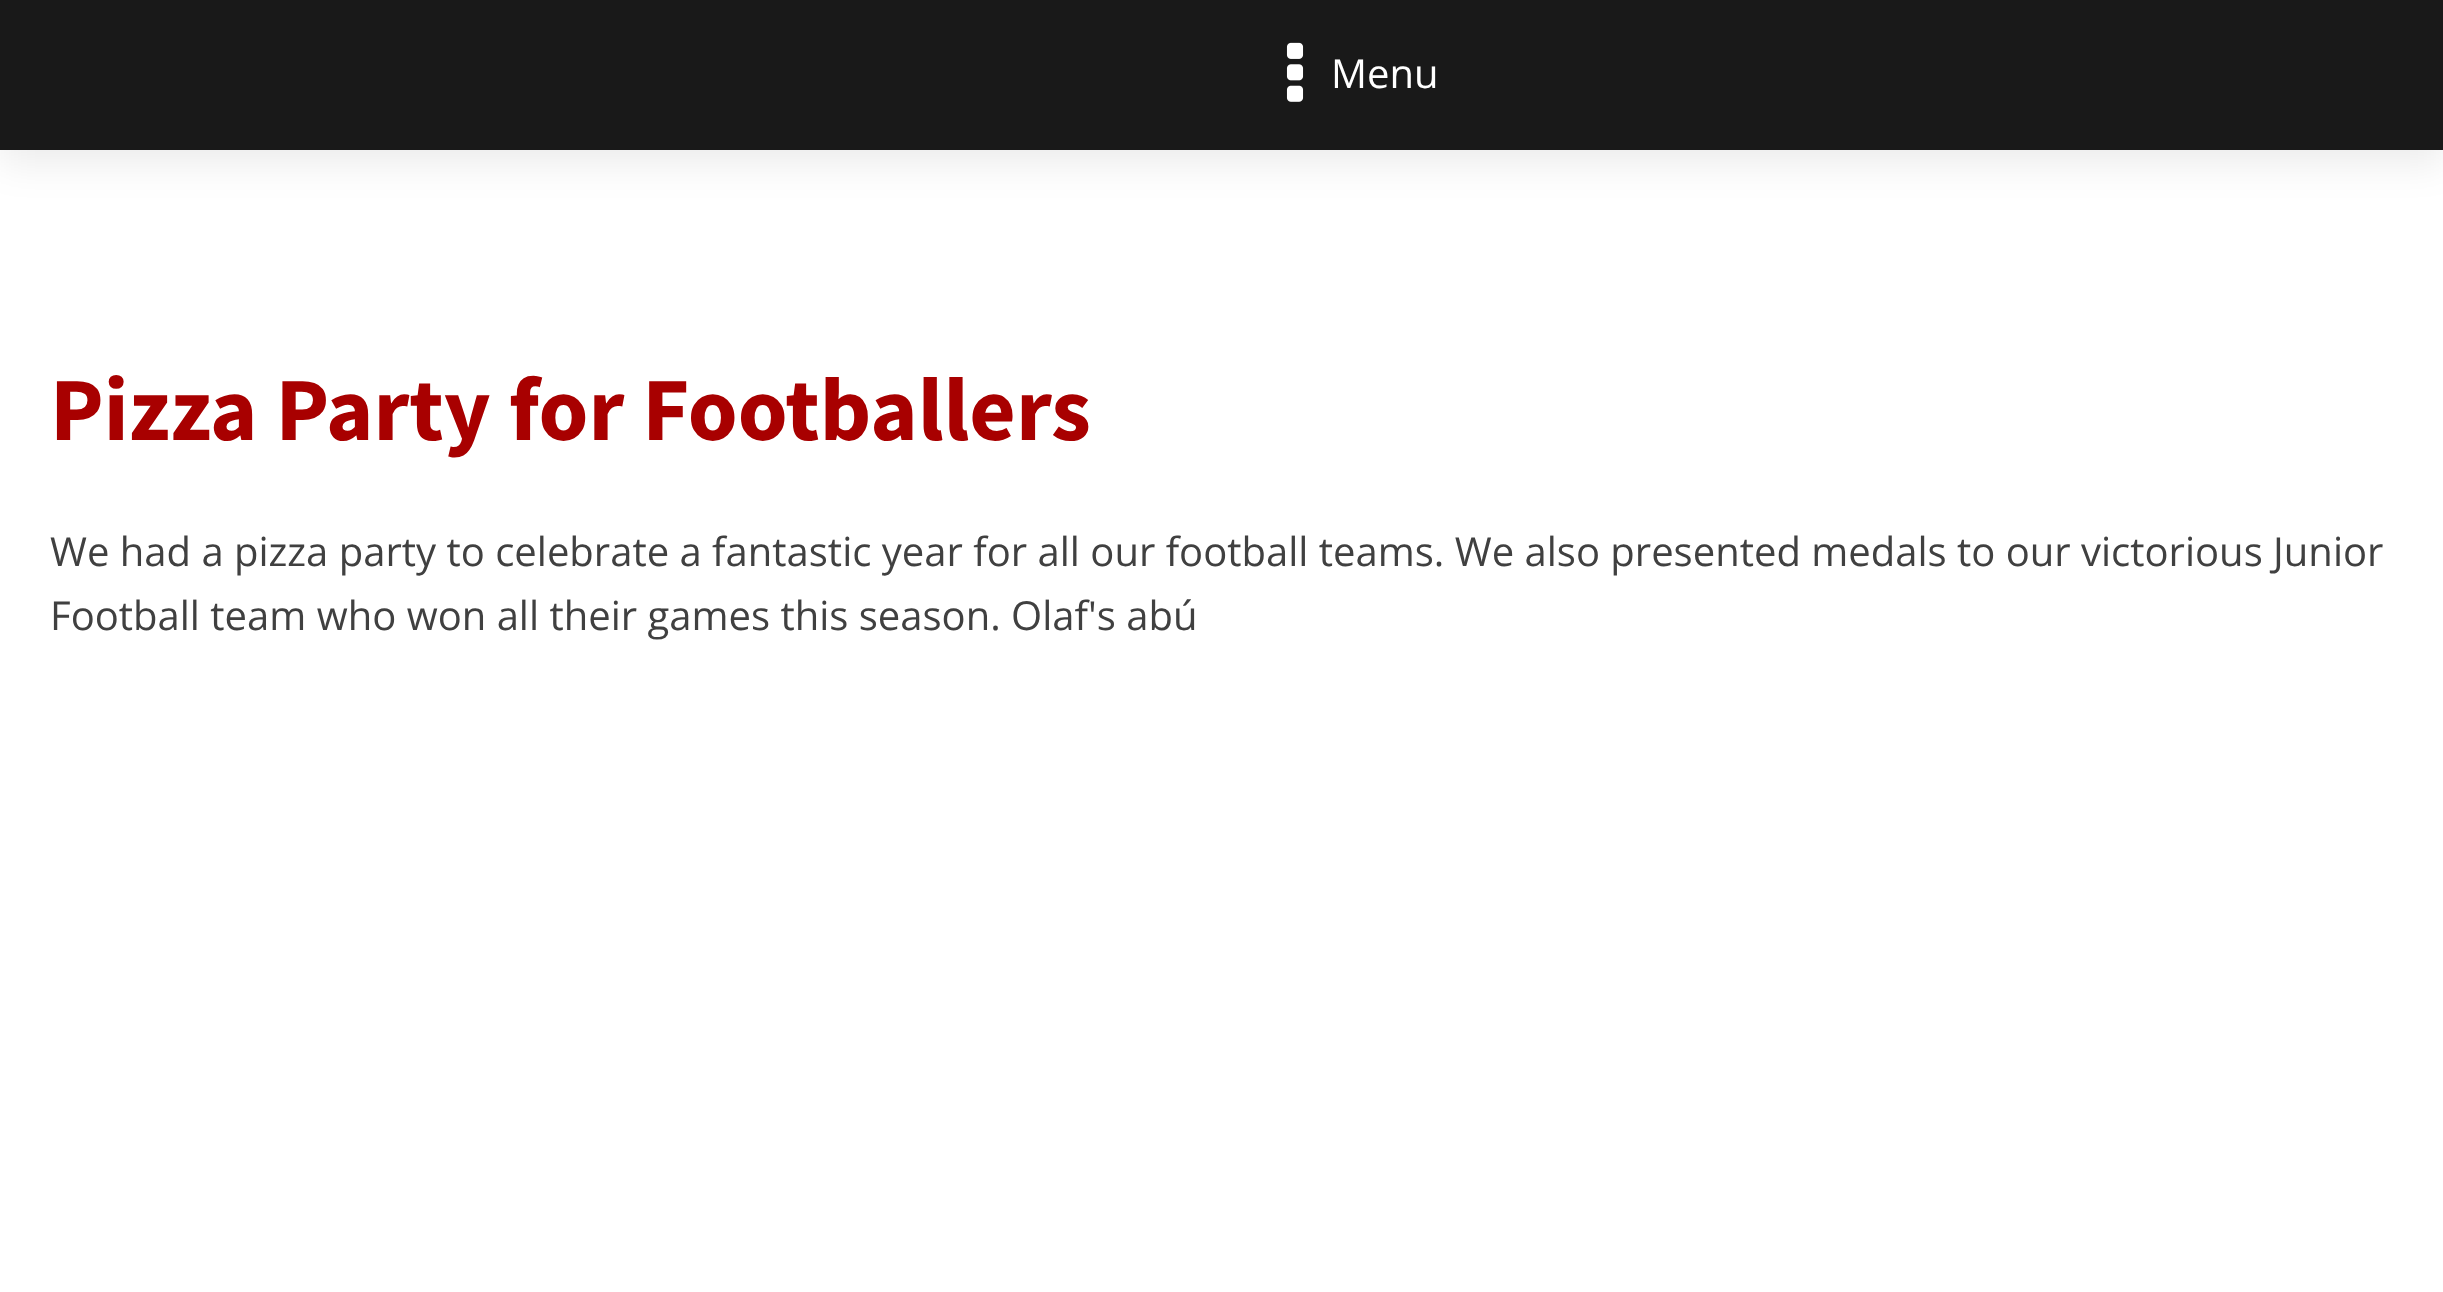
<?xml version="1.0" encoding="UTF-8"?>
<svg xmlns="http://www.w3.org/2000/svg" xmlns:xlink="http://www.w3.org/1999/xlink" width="2443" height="1292">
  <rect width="100%" height="100%" fill="#ffffff" />
  <rect y="13" width="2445" height="150" fill="#000000" fill-opacity="0.08" filter="blur(19px)" />
  <rect width="2443" height="150" fill="#191919" />
  <image x="1286" y="42" width="18" height="60" xlink:href="image1.png" />
  <text x="1331" y="88" style="font-family: Open Sans; font-size: 40px; fill: #ffffff">Menu</text>
  <text x="50" y="440" style="font-family: Source Sans Pro; font-size: 90px; font-weight: bold; fill: #a80000">Pizza Party for Footballers</text>
  <text x="50" y="566" style="font-family: Open Sans; font-size: 40px; fill: #404040">We had a pizza party to celebrate a fantastic year for all our football teams. We also presented medals to our victorious Junior</text>
  <text x="50" y="630" style="font-family: Open Sans; font-size: 40px; fill: #404040">Football team who won all their games this season. Olaf's abú</text>
</svg>
